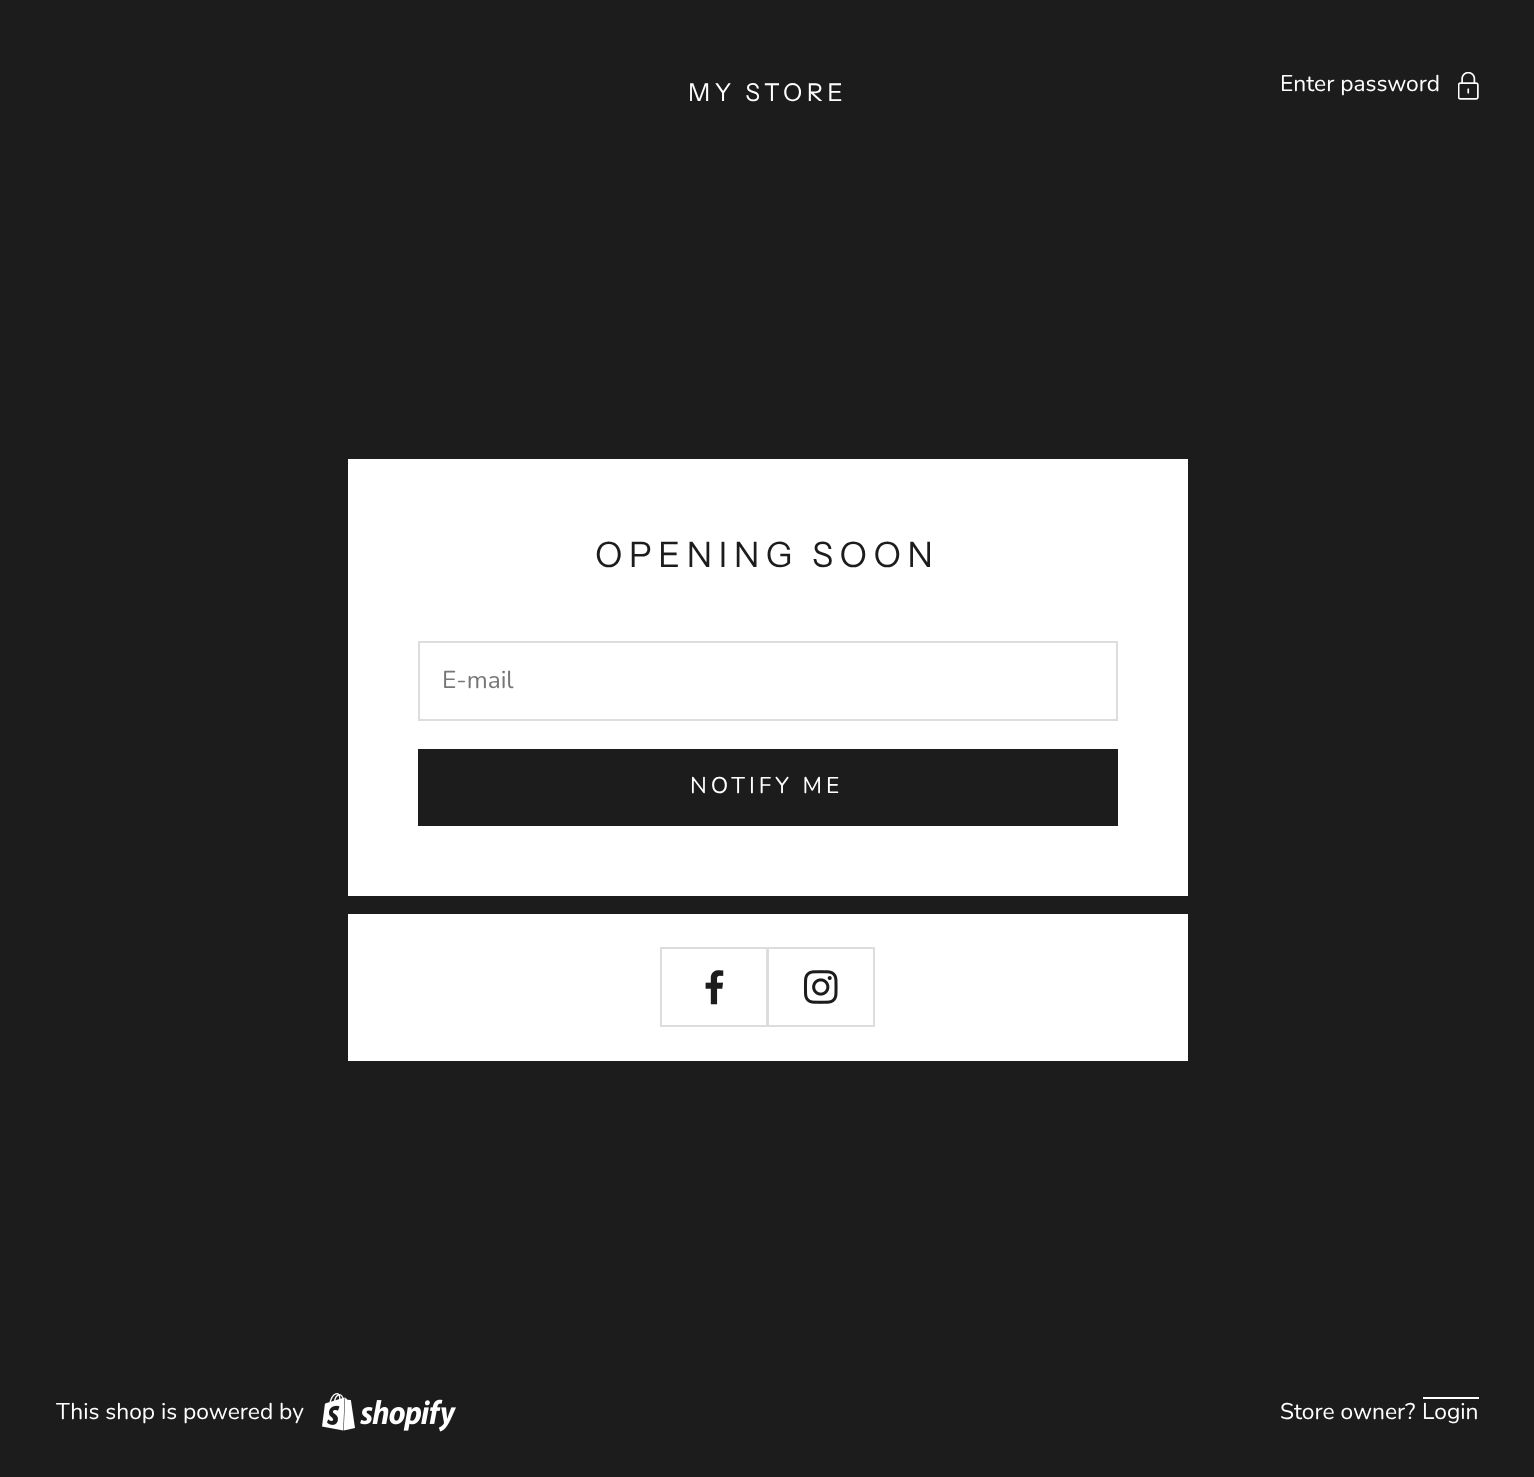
<?xml version="1.0" encoding="UTF-8"?>
<svg xmlns="http://www.w3.org/2000/svg" xmlns:xlink="http://www.w3.org/1999/xlink" width="1534" height="1477">
  <rect width="100%" height="100%" fill="#1c1c1c" />
  <image x="1458" y="72" width="21" height="28" xlink:href="image1.png" />
  <rect x="348" y="459" width="840" height="437" fill="#ffffff" />
  <rect x="419" y="642" width="698" height="78" fill="none" stroke="#dddddd" stroke-width="2" />
  <rect x="419" y="750" width="698" height="75" fill="#1c1c1c" stroke="#1c1c1c" stroke-width="2" />
  <rect x="348" y="914" width="840" height="147" fill="#ffffff" />
  <rect x="661" y="948" width="106" height="78" fill="none" stroke="#dddddd" stroke-width="2" />
  <image x="705" y="970" width="19" height="35" xlink:href="image2.png" />
  <rect x="768" y="948" width="106" height="78" fill="none" stroke="#dddddd" stroke-width="2" />
  <image x="803" y="970" width="35" height="34" xlink:href="image3.png" />
  <image x="322" y="1393" width="134" height="39" xlink:href="image4.png" />
  <rect x="1423" y="1397" width="56" height="2" fill="#ffffff" />
  <text x="688" y="101" style="font-family: Instrument Sans; font-size: 24.5px; letter-spacing: 4.5px; fill: #ffffff">MY STORE</text>
  <text x="1280" y="91" style="font-family: Nunito; font-size: 22.75px; fill: #ffffff">Enter password</text>
  <text x="595" y="567" style="font-family: Instrument Sans; font-size: 35px; letter-spacing: 6.25px; fill: #1c1c1c">OPENING SOON</text>
  <text x="442" y="688" style="font-family: Nunito; font-size: 24.5px; fill: #777777">E-mail</text>
  <text x="690" y="793" style="font-family: Nunito; font-size: 22.75px; letter-spacing: 4px; fill: #ffffff">NOTIFY ME</text>
  <text x="56" y="1419" style="font-family: Nunito; font-size: 22.75px; fill: #ffffff">This shop is powered by</text>
  <text x="1280" y="1419" style="font-family: Nunito; font-size: 22.75px; fill: #ffffff">Store owner?</text>
  <text x="1422" y="1419" style="font-family: Nunito; font-size: 22.75px; fill: #ffffff">Login</text>
</svg>
